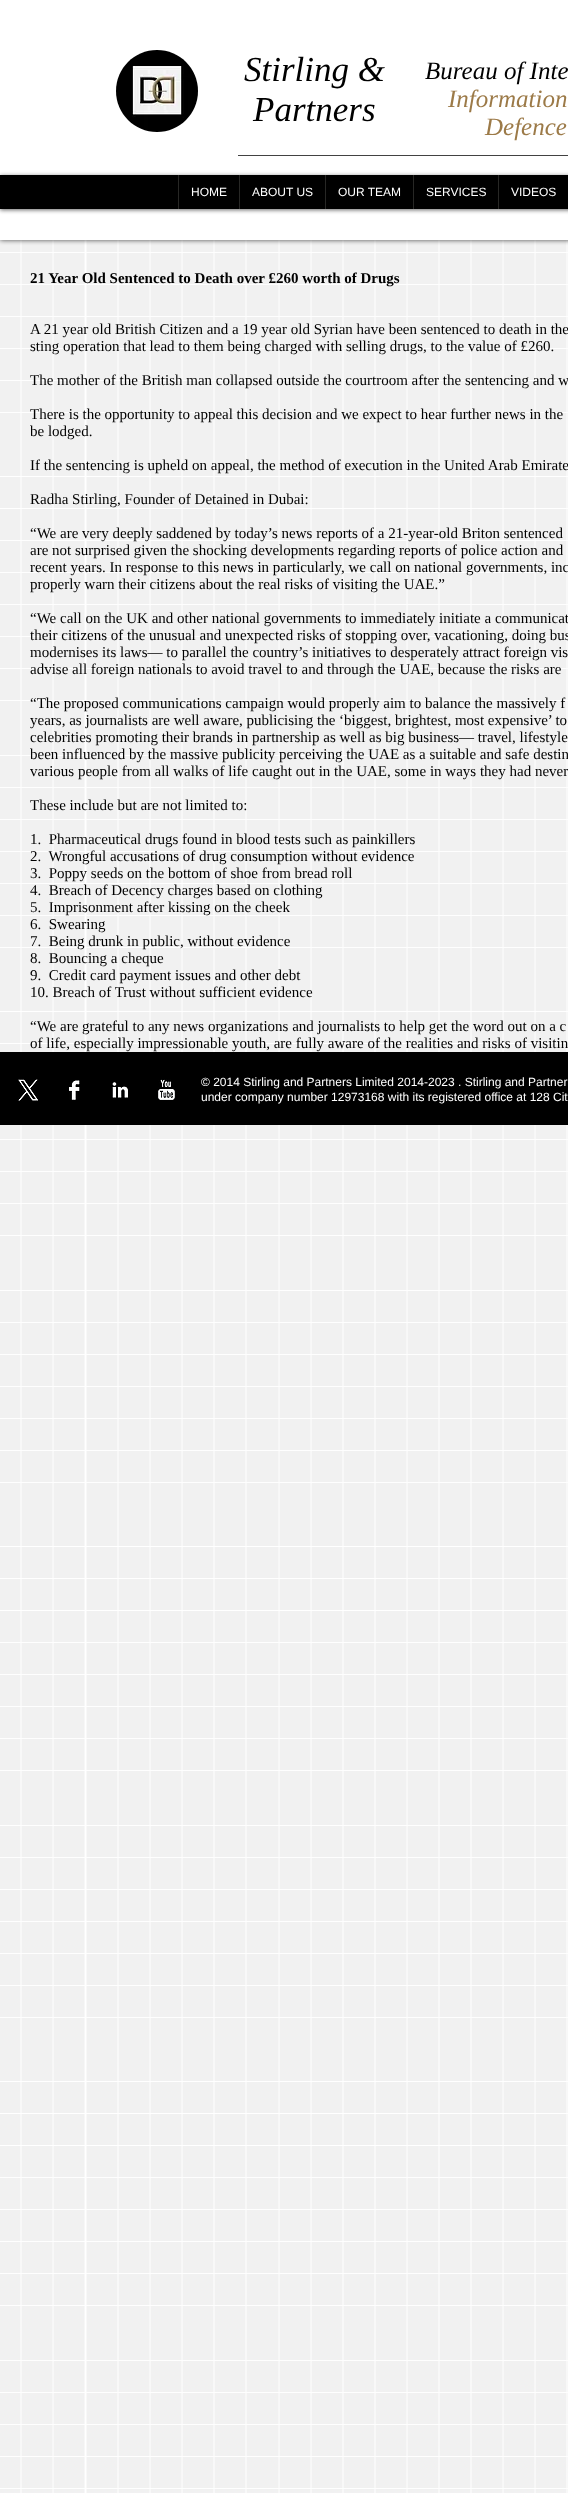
<?xml version="1.0" encoding="UTF-8"?>
<svg xmlns="http://www.w3.org/2000/svg" xmlns:xlink="http://www.w3.org/1999/xlink" width="568" height="2493">
  <rect width="100%" height="100%" fill="#ffffff" />
  <image x="0" y="240" width="568" height="2253" xlink:href="image6.png" />
  <rect width="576" height="240" fill="#000000" fill-opacity="0.7" filter="blur(2.5px)" />
  <rect width="568" height="240" fill="#ffffff" />
  <image x="116" y="50" width="82" height="82" xlink:href="image1.png" />
  <rect x="238" y="155" width="330" height="1" fill="#424242" />
  <rect y="176" width="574" height="34" fill="#000000" fill-opacity="0.6" filter="blur(2px)" />
  <rect y="175" width="568" height="34" fill="#000000" />
  <rect x="178" y="175" width="1" height="34" fill="#272725" />
  <rect x="239" y="175" width="1" height="34" fill="#272725" />
  <rect x="325" y="175" width="1" height="34" fill="#272725" />
  <rect x="413" y="175" width="1" height="34" fill="#272725" />
  <rect x="498" y="175" width="1" height="34" fill="#272725" />
  <rect y="1052" width="568" height="73" fill="#000000" />
  <image x="18" y="1079" width="20" height="22" xlink:href="image2.png" />
  <image x="69" y="1080" width="11" height="20" xlink:href="image3.png" />
  <image x="112" y="1082" width="16" height="16" xlink:href="image4.png" />
  <image x="158" y="1079" width="17" height="21" xlink:href="image5.png" />
  <text x="244" y="81" style="font-family: Liberation Serif; font-size: 35px; font-style: italic; fill: #000000">Stirling &amp;</text>
  <text x="253" y="121" style="font-family: Liberation Serif; font-size: 35px; font-style: italic; fill: #000000">Partners</text>
  <text x="425" y="79" style="font-family: Liberation Serif; font-size: 25px; font-style: italic; fill: #000000">Bureau of Inte</text>
  <text x="448" y="107" style="font-family: Liberation Serif; font-size: 25px; font-style: italic; fill: #9c7a48">Information</text>
  <text x="485" y="135" style="font-family: Liberation Serif; font-size: 25px; font-style: italic; fill: #9c7a48">Defence</text>
  <text x="191" y="196" style="font-family: Liberation Sans; font-size: 12px; fill: #ffffff">HOME</text>
  <text x="252" y="196" style="font-family: Liberation Sans; font-size: 12px; fill: #ffffff">ABOUT US</text>
  <text x="338" y="196" style="font-family: Liberation Sans; font-size: 12px; fill: #ffffff">OUR TEAM</text>
  <text x="426" y="196" style="font-family: Liberation Sans; font-size: 12px; fill: #ffffff">SERVICES</text>
  <text x="511" y="196" style="font-family: Liberation Sans; font-size: 12px; fill: #ffffff">VIDEOS</text>
  <text x="30" y="283" style="font-family: Liberation Serif; font-size: 15px; font-weight: bold; fill: #000000">21 Year Old Sentenced to Death over £260 worth of Drugs</text>
  <text x="30" y="334" style="font-family: Liberation Serif; font-size: 15px; fill: #000000">A 21 year old British Citizen and a 19 year old Syrian have been sentenced to death in the</text>
  <text x="30" y="351" style="font-family: Liberation Serif; font-size: 15px; fill: #000000">sting operation that lead to them being charged with selling drugs, to the value of £260.</text>
  <text x="30" y="385" style="font-family: Liberation Serif; font-size: 15px; fill: #000000">The mother of the British man collapsed outside the courtroom after the sentencing and w</text>
  <text x="30" y="419" style="font-family: Liberation Serif; font-size: 15px; fill: #000000">There is the opportunity to appeal this decision and we expect to hear further news in the</text>
  <text x="30" y="436" style="font-family: Liberation Serif; font-size: 15px; fill: #000000">be lodged.</text>
  <text x="30" y="470" style="font-family: Liberation Serif; font-size: 15px; fill: #000000">If the sentencing is upheld on appeal, the method of execution in the United Arab Emirate</text>
  <text x="30" y="504" style="font-family: Liberation Serif; font-size: 15px; fill: #000000">Radha Stirling, Founder of Detained in Dubai:</text>
  <text x="30" y="538" style="font-family: Liberation Serif; font-size: 15px; fill: #000000">“We are very deeply saddened by today’s news reports of a 21-year-old Briton sentenced</text>
  <text x="30" y="555" style="font-family: Liberation Serif; font-size: 15px; fill: #000000">are not surprised given the shocking developments regarding reports of police action and</text>
  <text x="30" y="572" style="font-family: Liberation Serif; font-size: 15px; fill: #000000">recent years. In response to this news in particularly, we call on national governments, inc</text>
  <text x="30" y="589" style="font-family: Liberation Serif; font-size: 15px; fill: #000000">properly warn their citizens about the real risks of visiting the UAE.”</text>
  <text x="30" y="623" style="font-family: Liberation Serif; font-size: 15px; fill: #000000">“We call on the UK and other national governments to immediately initiate a communicat</text>
  <text x="30" y="640" style="font-family: Liberation Serif; font-size: 15px; fill: #000000">their citizens of the unusual and unexpected risks of stopping over, vacationing, doing bus</text>
  <text x="30" y="657" style="font-family: Liberation Serif; font-size: 15px; fill: #000000">modernises its laws— to parallel the country’s initiatives to desperately attract foreign vis</text>
  <text x="30" y="674" style="font-family: Liberation Serif; font-size: 15px; fill: #000000">advise all foreign nationals to avoid travel to and through the UAE, because the risks are</text>
  <text x="30" y="708" style="font-family: Liberation Serif; font-size: 15px; fill: #000000">“The proposed communications campaign would properly aim to balance the massively f</text>
  <text x="30" y="725" style="font-family: Liberation Serif; font-size: 15px; fill: #000000">years, as journalists are well aware, publicising the ‘biggest, brightest, most expensive’ to</text>
  <text x="30" y="742" style="font-family: Liberation Serif; font-size: 15px; fill: #000000">celebrities promoting their brands in partnership as well as big business— travel, lifestyle</text>
  <text x="30" y="759" style="font-family: Liberation Serif; font-size: 15px; fill: #000000">been influenced by the massive publicity perceiving the UAE as a suitable and safe destin</text>
  <text x="30" y="776" style="font-family: Liberation Serif; font-size: 15px; fill: #000000">various people from all walks of life caught out in the UAE, some in ways they had never</text>
  <text x="30" y="810" style="font-family: Liberation Serif; font-size: 15px; fill: #000000">These include but are not limited to:</text>
  <text x="30" y="844" style="font-family: Liberation Serif; font-size: 15px; fill: #000000" xml:space="preserve">1.  Pharmaceutical drugs found in blood tests such as painkillers</text>
  <text x="30" y="861" style="font-family: Liberation Serif; font-size: 15px; fill: #000000" xml:space="preserve">2.  Wrongful accusations of drug consumption without evidence</text>
  <text x="30" y="878" style="font-family: Liberation Serif; font-size: 15px; fill: #000000" xml:space="preserve">3.  Poppy seeds on the bottom of shoe from bread roll</text>
  <text x="30" y="895" style="font-family: Liberation Serif; font-size: 15px; fill: #000000" xml:space="preserve">4.  Breach of Decency charges based on clothing</text>
  <text x="30" y="912" style="font-family: Liberation Serif; font-size: 15px; fill: #000000" xml:space="preserve">5.  Imprisonment after kissing on the cheek</text>
  <text x="30" y="929" style="font-family: Liberation Serif; font-size: 15px; fill: #000000" xml:space="preserve">6.  Swearing</text>
  <text x="30" y="946" style="font-family: Liberation Serif; font-size: 15px; fill: #000000" xml:space="preserve">7.  Being drunk in public, without evidence</text>
  <text x="30" y="963" style="font-family: Liberation Serif; font-size: 15px; fill: #000000" xml:space="preserve">8.  Bouncing a cheque</text>
  <text x="30" y="980" style="font-family: Liberation Serif; font-size: 15px; fill: #000000" xml:space="preserve">9.  Credit card payment issues and other debt</text>
  <text x="30" y="997" style="font-family: Liberation Serif; font-size: 15px; fill: #000000">10. Breach of Trust without sufficient evidence</text>
  <text x="30" y="1031" style="font-family: Liberation Serif; font-size: 15px; fill: #000000">“We are grateful to any news organizations and journalists to help get the word out on a c</text>
  <text x="30" y="1048" style="font-family: Liberation Serif; font-size: 15px; fill: #000000">of life, especially impressionable youth, are fully aware of the realities and risks of visitin</text>
  <text x="201" y="1086" style="font-family: Liberation Sans; font-size: 12px; fill: #ffffff">© 2014 Stirling and Partners Limited 2014-2023 . Stirling and Partner</text>
  <text x="201" y="1101" style="font-family: Liberation Sans; font-size: 12px; fill: #ffffff">under company number 12973168 with its registered office at 128 Cit</text>
</svg>
